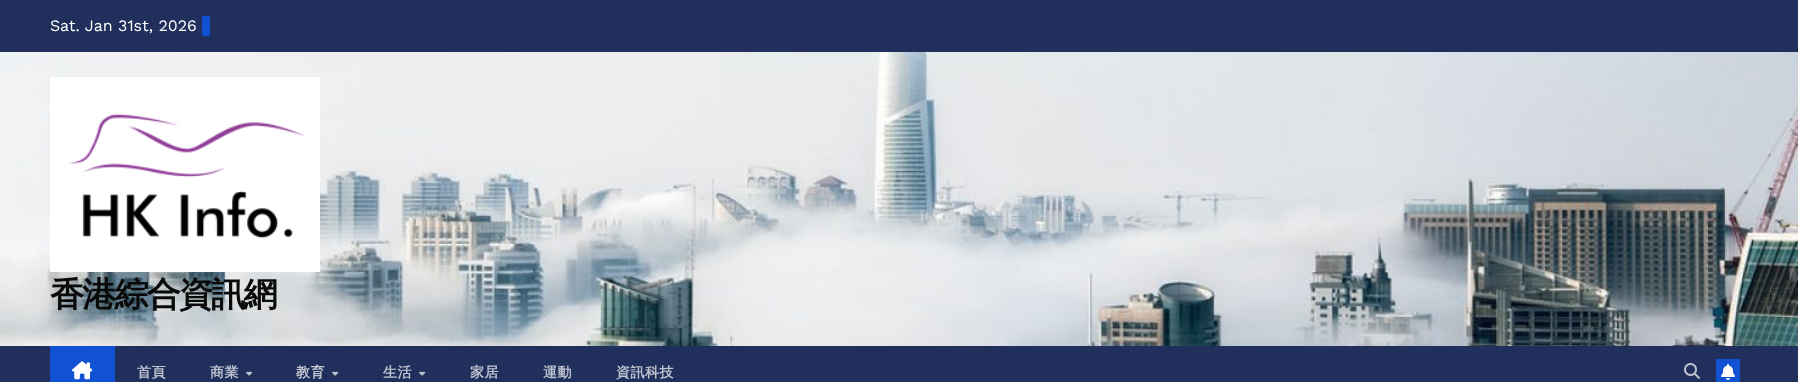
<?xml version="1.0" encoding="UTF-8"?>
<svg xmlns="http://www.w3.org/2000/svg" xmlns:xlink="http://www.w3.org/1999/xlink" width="1798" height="382">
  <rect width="100%" height="100%" fill="#202f5b" />
  <rect x="202" y="16" width="8" height="20" rx="2" fill="#1151d3" />
  <image x="0" y="52" width="1798" height="294" xlink:href="image1.png" />
  <image x="50" y="77" width="270" height="195" xlink:href="image2.png" />
  <rect x="50" y="346" width="65" height="36" fill="#1151d3" />
  <image x="72" y="361" width="21" height="19" xlink:href="image3.png" />
  <image x="246" y="371" width="7" height="5" xlink:href="image4.png" />
  <image x="332" y="371" width="7" height="5" xlink:href="image4.png" />
  <image x="419" y="371" width="7" height="5" xlink:href="image4.png" />
  <image x="1684" y="363" width="16" height="16" xlink:href="image5.png" />
  <rect x="1716" y="359" width="24" height="23" fill="#1151d3" />
  <image x="1721" y="364" width="14" height="16" xlink:href="image6.png" />
  <text x="50" y="31" style="font-family: Work Sans; font-size: 16px; fill: #ffffff">Sat. Jan 31st, 2026</text>
  <text x="50" y="306" style="font-family: WenQuanYi Zen Hei; font-size: 34px; font-weight: bold; letter-spacing: -1.75px; fill: #0a0a0a">香港綜合資訊網</text>
  <text x="137" y="377" style="font-family: WenQuanYi Zen Hei; font-size: 14px; font-weight: bold; letter-spacing: 0.5px; fill: #bec3cf">首頁</text>
  <text x="210" y="377" style="font-family: WenQuanYi Zen Hei; font-size: 14px; font-weight: bold; letter-spacing: 0.5px; fill: #bec3cf">商業</text>
  <text x="296" y="377" style="font-family: WenQuanYi Zen Hei; font-size: 14px; font-weight: bold; letter-spacing: 0.5px; fill: #bec3cf">教育</text>
  <text x="383" y="377" style="font-family: WenQuanYi Zen Hei; font-size: 14px; font-weight: bold; letter-spacing: 0.5px; fill: #bec3cf">生活</text>
  <text x="470" y="377" style="font-family: WenQuanYi Zen Hei; font-size: 14px; font-weight: bold; letter-spacing: 0.5px; fill: #bec3cf">家居</text>
  <text x="543" y="377" style="font-family: WenQuanYi Zen Hei; font-size: 14px; font-weight: bold; letter-spacing: 0.5px; fill: #bec3cf">運動</text>
  <text x="616" y="377" style="font-family: WenQuanYi Zen Hei; font-size: 14px; font-weight: bold; letter-spacing: 0.5px; fill: #bec3cf">資訊科技</text>
</svg>
